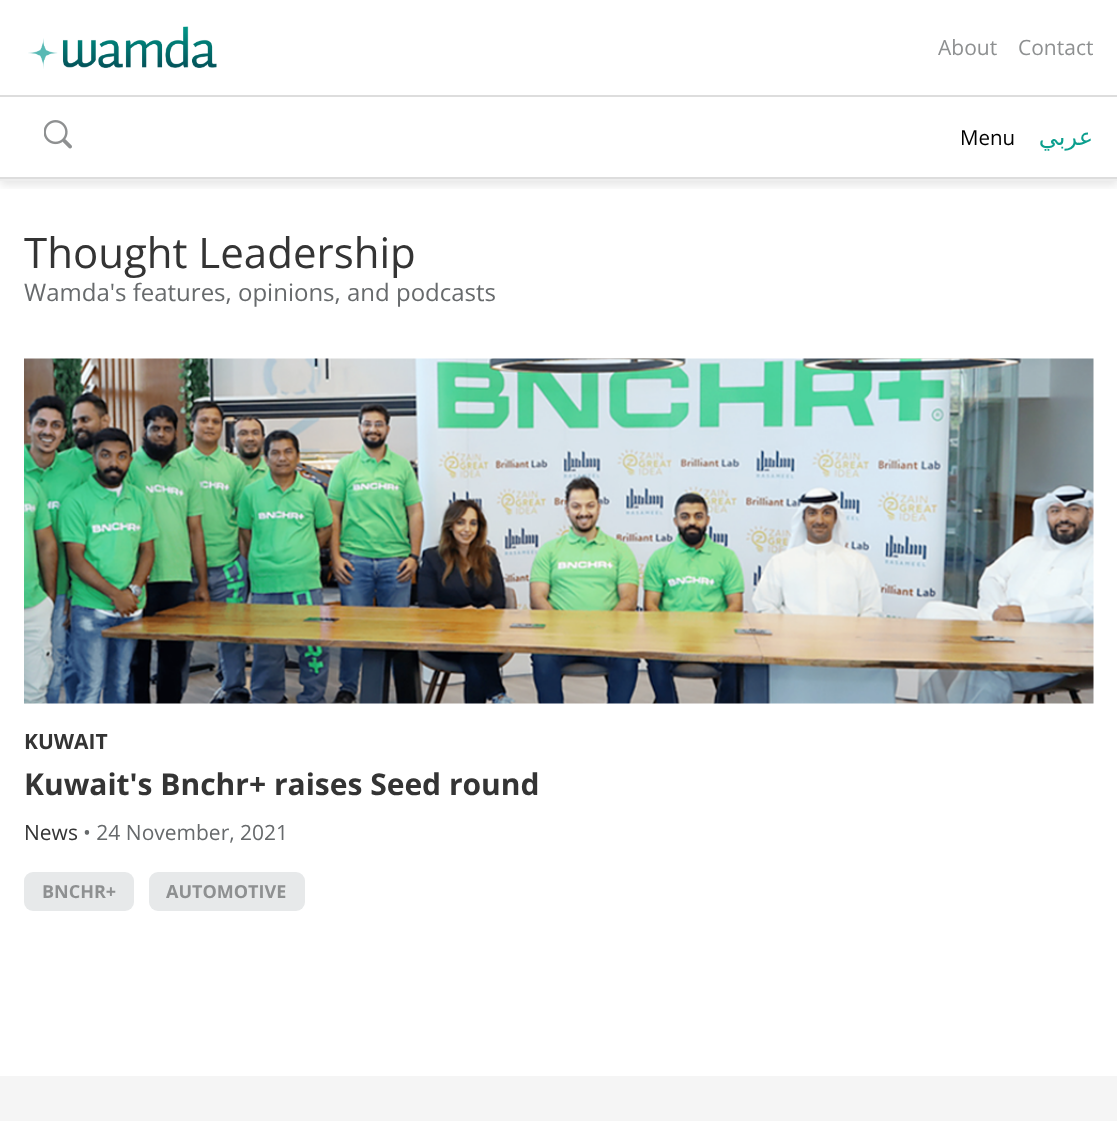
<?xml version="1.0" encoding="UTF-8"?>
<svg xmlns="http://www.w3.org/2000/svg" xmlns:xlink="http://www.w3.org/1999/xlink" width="1117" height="1121">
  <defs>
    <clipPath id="clip1"><rect x="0" y="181" width="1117" height="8" /></clipPath>
  </defs>
  <rect width="100%" height="100%" fill="#ffffff" />
  <g clip-path="url(#clip1)">
    <rect y="5" width="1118" height="180" fill="#000000" fill-opacity="0.1" filter="blur(5px)" />
  </g>
  <rect y="179" width="1117" height="2" fill="#eeeeee" />
  <image x="28" y="26" width="189" height="43" xlink:href="image1.png" />
  <rect y="95" width="1117" height="2" fill="#dddddd" />
  <rect y="177" width="1117" height="2" fill="#dddddd" />
  <image x="44" y="120" width="28" height="29" xlink:href="image2.png" />
  <image x="24" y="358" width="1070" height="346" xlink:href="image3.png" />
  <rect x="24" y="872" width="110" height="39" rx="9" fill="#e7e9ea" />
  <rect x="149" y="872" width="156" height="39" rx="9" fill="#e7e9ea" />
  <rect y="1076" width="1117" height="45" fill="#f5f5f5" />
  <text x="938" y="55" style="font-family: Open Sans; font-size: 21px; fill: #8e9091">About</text>
  <text x="1018" y="55" style="font-family: Open Sans; font-size: 21px; fill: #8e9091">Contact</text>
  <text x="960" y="145" style="font-family: Open Sans; font-size: 20.5px; fill: #000000">Menu</text>
  <text x="1093" y="145" style="font-family: DejaVu Sans; font-size: 24px; direction: rtl; fill: #0b9f8e">عربي</text>
  <text x="24" y="268" style="font-family: Open Sans; font-size: 42px; fill: #343434">Thought Leadership</text>
  <text x="24" y="301" style="font-family: Open Sans; font-size: 24px; fill: #676a6c">Wamda's features, opinions, and podcasts</text>
  <text x="24" y="749" style="font-family: Open Sans; font-size: 21px; font-weight: bold; fill: #343434">KUWAIT</text>
  <text x="24" y="795" style="font-family: Open Sans; font-size: 30px; font-weight: bold; fill: #343434">Kuwait's Bnchr+ raises Seed round</text>
  <text x="24" y="840" style="font-family: Open Sans; font-size: 21px; fill: #343434">News</text>
  <text x="83" y="840" style="font-family: Open Sans; font-size: 21px; fill: #676a6c">• 24 November, 2021</text>
  <text x="42" y="898" style="font-family: Open Sans; font-size: 18px; font-weight: bold; fill: #8e9091">BNCHR+</text>
  <text x="166" y="898" style="font-family: Open Sans; font-size: 18px; font-weight: bold; fill: #8e9091">AUTOMOTIVE</text>
</svg>
